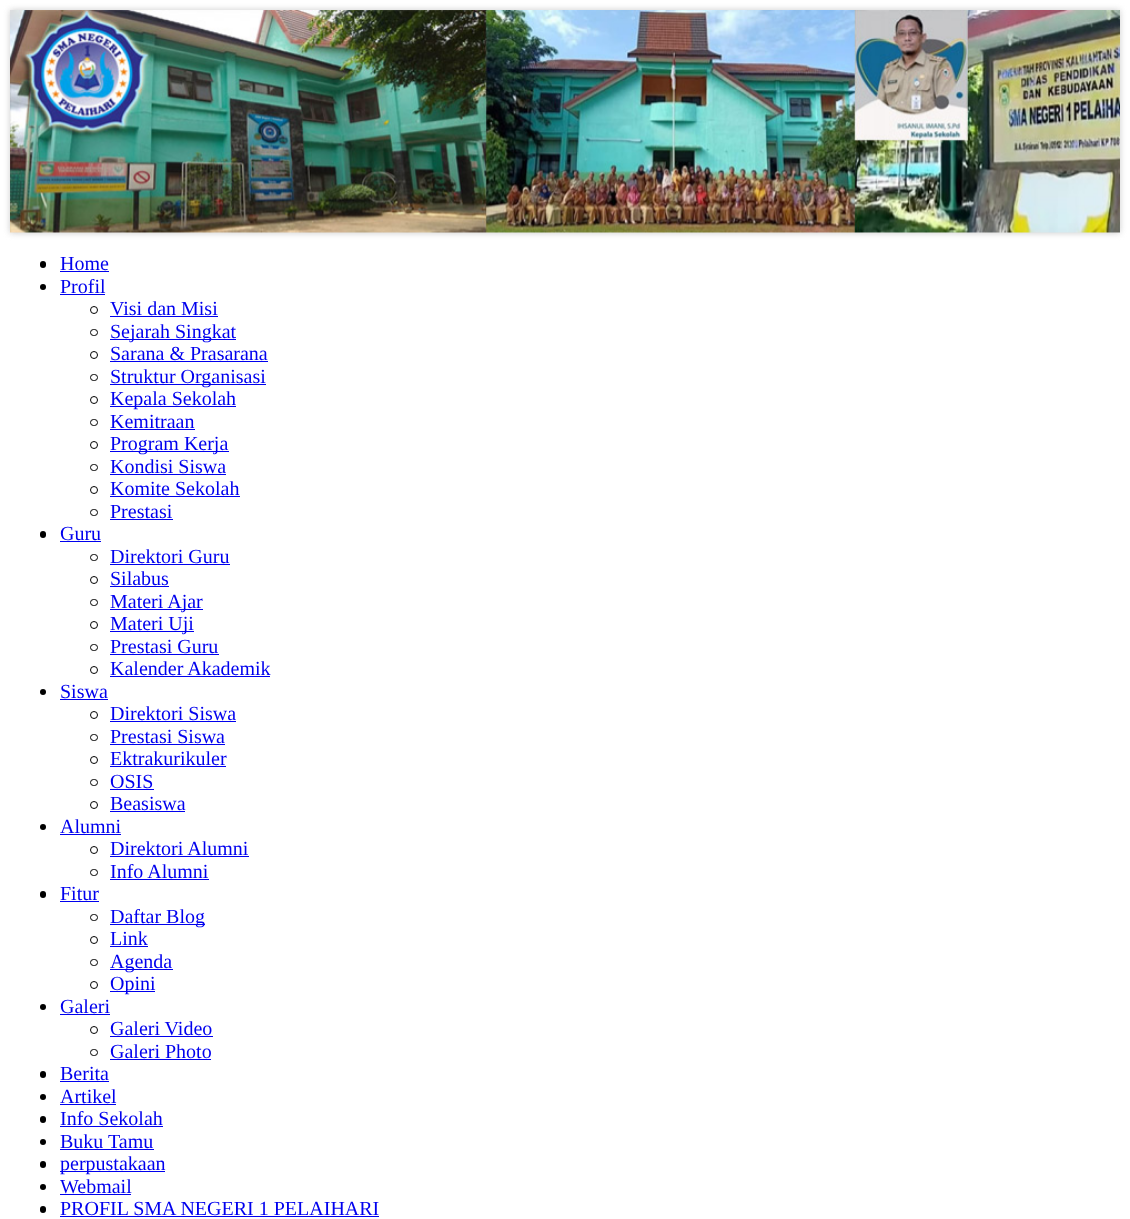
<?xml version="1.0" encoding="UTF-8"?>
<svg xmlns="http://www.w3.org/2000/svg" xmlns:xlink="http://www.w3.org/1999/xlink" width="1130" height="1219">
  <rect width="100%" height="100%" fill="#ffffff" />
  <rect x="10" y="10" width="1110" height="223" fill="#cccccc" filter="blur(3px)" />
  <image x="10" y="10" width="1110" height="223" xlink:href="image1.png" />
  <rect x="40" y="261" width="6" height="7" rx="3" fill="#000000" />
  <rect x="60" y="271" width="49" height="1" fill="#0000ee" />
  <circle cx="43" cy="287" r="3" fill="#000000" />
  <rect x="60" y="294" width="45" height="1" fill="#0000ee" />
  <circle cx="94" cy="310" r="3.5" fill="none" stroke="#000000" />
  <rect x="110" y="316" width="108" height="1" fill="#0000ee" />
  <rect x="90.5" y="329.5" width="7" height="6" rx="3" fill="none" stroke="#000000" />
  <rect x="110" y="339" width="126" height="1" fill="#0000ee" />
  <circle cx="94" cy="355" r="3.5" fill="none" stroke="#000000" />
  <rect x="110" y="361" width="158" height="1" fill="#0000ee" />
  <rect x="90.5" y="374.5" width="7" height="6" rx="3" fill="none" stroke="#000000" />
  <rect x="110" y="384" width="156" height="1" fill="#0000ee" />
  <circle cx="94" cy="400" r="3.5" fill="none" stroke="#000000" />
  <rect x="110" y="406" width="126" height="1" fill="#0000ee" />
  <rect x="90.5" y="419.5" width="7" height="6" rx="3" fill="none" stroke="#000000" />
  <rect x="110" y="429" width="85" height="1" fill="#0000ee" />
  <circle cx="94" cy="445" r="3.5" fill="none" stroke="#000000" />
  <rect x="110" y="451" width="119" height="1" fill="#0000ee" />
  <rect x="90.5" y="464.5" width="7" height="6" rx="3" fill="none" stroke="#000000" />
  <rect x="110" y="474" width="116" height="1" fill="#0000ee" />
  <circle cx="94" cy="490" r="3.5" fill="none" stroke="#000000" />
  <rect x="110" y="496" width="130" height="1" fill="#0000ee" />
  <rect x="90.5" y="509.5" width="7" height="6" rx="3" fill="none" stroke="#000000" />
  <rect x="110" y="519" width="63" height="1" fill="#0000ee" />
  <rect x="40" y="531" width="6" height="7" rx="3" fill="#000000" />
  <rect x="60" y="541" width="41" height="1" fill="#0000ee" />
  <rect x="90.5" y="554.5" width="7" height="6" rx="3" fill="none" stroke="#000000" />
  <rect x="110" y="564" width="120" height="1" fill="#0000ee" />
  <circle cx="94" cy="580" r="3.5" fill="none" stroke="#000000" />
  <rect x="110" y="586" width="59" height="1" fill="#0000ee" />
  <rect x="90.5" y="599.5" width="7" height="6" rx="3" fill="none" stroke="#000000" />
  <rect x="110" y="609" width="93" height="1" fill="#0000ee" />
  <circle cx="94" cy="625" r="3.5" fill="none" stroke="#000000" />
  <rect x="110" y="631" width="84" height="1" fill="#0000ee" />
  <rect x="90.5" y="644.5" width="7" height="6" rx="3" fill="none" stroke="#000000" />
  <rect x="110" y="654" width="109" height="1" fill="#0000ee" />
  <circle cx="94" cy="670" r="3.5" fill="none" stroke="#000000" />
  <rect x="110" y="676" width="160" height="1" fill="#0000ee" />
  <circle cx="43" cy="692" r="3" fill="#000000" />
  <rect x="60" y="699" width="48" height="1" fill="#0000ee" />
  <circle cx="94" cy="715" r="3.5" fill="none" stroke="#000000" />
  <rect x="110" y="721" width="126" height="1" fill="#0000ee" />
  <rect x="90.5" y="734.5" width="7" height="6" rx="3" fill="none" stroke="#000000" />
  <rect x="110" y="744" width="115" height="1" fill="#0000ee" />
  <circle cx="94" cy="760" r="3.5" fill="none" stroke="#000000" />
  <rect x="110" y="766" width="116" height="1" fill="#0000ee" />
  <rect x="90.5" y="779.5" width="7" height="6" rx="3" fill="none" stroke="#000000" />
  <rect x="110" y="789" width="44" height="1" fill="#0000ee" />
  <circle cx="94" cy="805" r="3.5" fill="none" stroke="#000000" />
  <rect x="110" y="811" width="75" height="1" fill="#0000ee" />
  <circle cx="43" cy="827" r="3" fill="#000000" />
  <rect x="60" y="834" width="61" height="1" fill="#0000ee" />
  <circle cx="94" cy="850" r="3.5" fill="none" stroke="#000000" />
  <rect x="110" y="856" width="139" height="1" fill="#0000ee" />
  <rect x="90.5" y="869.5" width="7" height="6" rx="3" fill="none" stroke="#000000" />
  <rect x="110" y="879" width="99" height="1" fill="#0000ee" />
  <rect x="40" y="891" width="6" height="7" rx="3" fill="#000000" />
  <rect x="60" y="901" width="39" height="1" fill="#0000ee" />
  <rect x="90.5" y="914.5" width="7" height="6" rx="3" fill="none" stroke="#000000" />
  <rect x="110" y="924" width="95" height="1" fill="#0000ee" />
  <circle cx="94" cy="940" r="3.5" fill="none" stroke="#000000" />
  <rect x="110" y="946" width="38" height="1" fill="#0000ee" />
  <rect x="90.5" y="959.5" width="7" height="6" rx="3" fill="none" stroke="#000000" />
  <rect x="110" y="969" width="63" height="1" fill="#0000ee" />
  <circle cx="94" cy="985" r="3.5" fill="none" stroke="#000000" />
  <rect x="110" y="991" width="45" height="1" fill="#0000ee" />
  <circle cx="43" cy="1007" r="3" fill="#000000" />
  <rect x="60" y="1014" width="50" height="1" fill="#0000ee" />
  <circle cx="94" cy="1030" r="3.5" fill="none" stroke="#000000" />
  <rect x="110" y="1036" width="103" height="1" fill="#0000ee" />
  <rect x="90.5" y="1049.5" width="7" height="6" rx="3" fill="none" stroke="#000000" />
  <rect x="110" y="1059" width="101" height="1" fill="#0000ee" />
  <rect x="40" y="1071" width="6" height="7" rx="3" fill="#000000" />
  <rect x="60" y="1081" width="49" height="1" fill="#0000ee" />
  <circle cx="43" cy="1097" r="3" fill="#000000" />
  <rect x="60" y="1104" width="56" height="1" fill="#0000ee" />
  <rect x="40" y="1116" width="6" height="7" rx="3" fill="#000000" />
  <rect x="60" y="1126" width="103" height="1" fill="#0000ee" />
  <circle cx="43" cy="1142" r="3" fill="#000000" />
  <rect x="60" y="1149" width="94" height="1" fill="#0000ee" />
  <rect x="40" y="1161" width="6" height="7" rx="3" fill="#000000" />
  <rect x="60" y="1171" width="105" height="1" fill="#0000ee" />
  <circle cx="43" cy="1187" r="3" fill="#000000" />
  <rect x="60" y="1194" width="71" height="1" fill="#0000ee" />
  <rect x="40" y="1206" width="6" height="7" rx="3" fill="#000000" />
  <rect x="60" y="1216" width="319" height="1" fill="#0000ee" />
  <text x="60" y="270" style="font-family: Liberation Serif; font-size: 20px; fill: #0000ee">Home</text>
  <text x="60" y="293" style="font-family: Liberation Serif; font-size: 20px; fill: #0000ee">Profil</text>
  <text x="110" y="315" style="font-family: Liberation Serif; font-size: 20px; fill: #0000ee">Visi dan Misi</text>
  <text x="110" y="338" style="font-family: Liberation Serif; font-size: 20px; fill: #0000ee">Sejarah Singkat</text>
  <text x="110" y="360" style="font-family: Liberation Serif; font-size: 20px; fill: #0000ee">Sarana &amp; Prasarana</text>
  <text x="110" y="383" style="font-family: Liberation Serif; font-size: 20px; fill: #0000ee">Struktur Organisasi</text>
  <text x="110" y="405" style="font-family: Liberation Serif; font-size: 20px; fill: #0000ee">Kepala Sekolah</text>
  <text x="110" y="428" style="font-family: Liberation Serif; font-size: 20px; fill: #0000ee">Kemitraan</text>
  <text x="110" y="450" style="font-family: Liberation Serif; font-size: 20px; fill: #0000ee">Program Kerja</text>
  <text x="110" y="473" style="font-family: Liberation Serif; font-size: 20px; fill: #0000ee">Kondisi Siswa</text>
  <text x="110" y="495" style="font-family: Liberation Serif; font-size: 20px; fill: #0000ee">Komite Sekolah</text>
  <text x="110" y="518" style="font-family: Liberation Serif; font-size: 20px; fill: #0000ee">Prestasi</text>
  <text x="60" y="540" style="font-family: Liberation Serif; font-size: 20px; fill: #0000ee">Guru</text>
  <text x="110" y="563" style="font-family: Liberation Serif; font-size: 20px; fill: #0000ee">Direktori Guru</text>
  <text x="110" y="585" style="font-family: Liberation Serif; font-size: 20px; fill: #0000ee">Silabus</text>
  <text x="110" y="608" style="font-family: Liberation Serif; font-size: 20px; fill: #0000ee">Materi Ajar</text>
  <text x="110" y="630" style="font-family: Liberation Serif; font-size: 20px; fill: #0000ee">Materi Uji</text>
  <text x="110" y="653" style="font-family: Liberation Serif; font-size: 20px; fill: #0000ee">Prestasi Guru</text>
  <text x="110" y="675" style="font-family: Liberation Serif; font-size: 20px; fill: #0000ee">Kalender Akademik</text>
  <text x="60" y="698" style="font-family: Liberation Serif; font-size: 20px; fill: #0000ee">Siswa</text>
  <text x="110" y="720" style="font-family: Liberation Serif; font-size: 20px; fill: #0000ee">Direktori Siswa</text>
  <text x="110" y="743" style="font-family: Liberation Serif; font-size: 20px; fill: #0000ee">Prestasi Siswa</text>
  <text x="110" y="765" style="font-family: Liberation Serif; font-size: 20px; fill: #0000ee">Ektrakurikuler</text>
  <text x="110" y="788" style="font-family: Liberation Serif; font-size: 20px; fill: #0000ee">OSIS</text>
  <text x="110" y="810" style="font-family: Liberation Serif; font-size: 20px; fill: #0000ee">Beasiswa</text>
  <text x="60" y="833" style="font-family: Liberation Serif; font-size: 20px; fill: #0000ee">Alumni</text>
  <text x="110" y="855" style="font-family: Liberation Serif; font-size: 20px; fill: #0000ee">Direktori Alumni</text>
  <text x="110" y="878" style="font-family: Liberation Serif; font-size: 20px; fill: #0000ee">Info Alumni</text>
  <text x="60" y="900" style="font-family: Liberation Serif; font-size: 20px; fill: #0000ee">Fitur</text>
  <text x="110" y="923" style="font-family: Liberation Serif; font-size: 20px; fill: #0000ee">Daftar Blog</text>
  <text x="110" y="945" style="font-family: Liberation Serif; font-size: 20px; fill: #0000ee">Link</text>
  <text x="110" y="968" style="font-family: Liberation Serif; font-size: 20px; fill: #0000ee">Agenda</text>
  <text x="110" y="990" style="font-family: Liberation Serif; font-size: 20px; fill: #0000ee">Opini</text>
  <text x="60" y="1013" style="font-family: Liberation Serif; font-size: 20px; fill: #0000ee">Galeri</text>
  <text x="110" y="1035" style="font-family: Liberation Serif; font-size: 20px; fill: #0000ee">Galeri Video</text>
  <text x="110" y="1058" style="font-family: Liberation Serif; font-size: 20px; fill: #0000ee">Galeri Photo</text>
  <text x="60" y="1080" style="font-family: Liberation Serif; font-size: 20px; fill: #0000ee">Berita</text>
  <text x="60" y="1103" style="font-family: Liberation Serif; font-size: 20px; fill: #0000ee">Artikel</text>
  <text x="60" y="1125" style="font-family: Liberation Serif; font-size: 20px; fill: #0000ee">Info Sekolah</text>
  <text x="60" y="1148" style="font-family: Liberation Serif; font-size: 20px; fill: #0000ee">Buku Tamu</text>
  <text x="60" y="1170" style="font-family: Liberation Serif; font-size: 20px; fill: #0000ee">perpustakaan</text>
  <text x="60" y="1193" style="font-family: Liberation Serif; font-size: 20px; fill: #0000ee">Webmail</text>
  <text x="60" y="1215" style="font-family: Liberation Serif; font-size: 20px; fill: #0000ee">PROFIL SMA NEGERI 1 PELAIHARI</text>
</svg>
